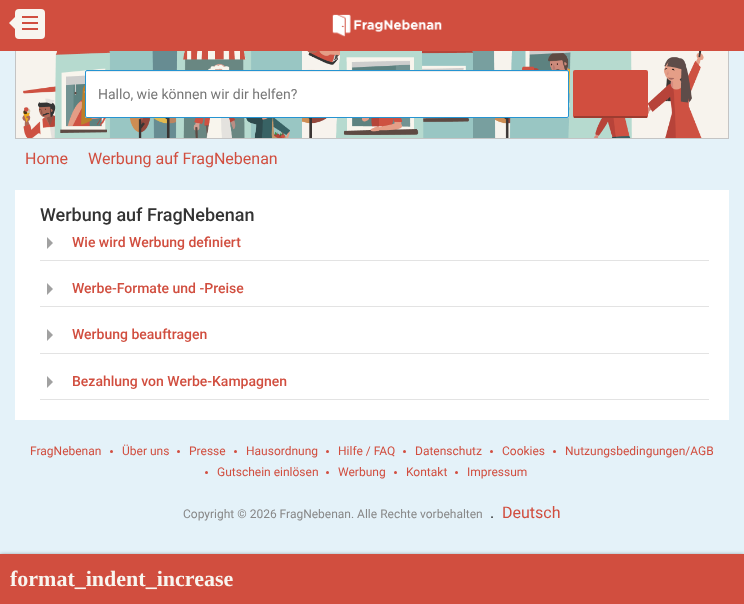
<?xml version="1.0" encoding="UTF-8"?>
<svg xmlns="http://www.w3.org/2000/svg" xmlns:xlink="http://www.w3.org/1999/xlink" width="744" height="604">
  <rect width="100%" height="100%" fill="#e4f2f9" />
  <image x="16" y="51" width="712" height="87" xlink:href="image2.png" />
  <rect x="15.5" y="49.5" width="713" height="89" fill="none" stroke="#c4c4c4" />
  <rect width="744" height="51" fill="#d14e3f" />
  <rect x="15" y="9" width="30" height="30" rx="4" fill="#f8f5ef" />
  <path d="M 15 17 v 12 l -6 -6 z" fill="#f8f5ef" />
  <rect x="22" y="16" width="16" height="2" fill="#d14e3f" />
  <rect x="22" y="22" width="16" height="2" fill="#d14e3f" />
  <rect x="22" y="28" width="16" height="2" fill="#d14e3f" />
  <image x="332" y="14" width="110" height="23" xlink:href="image1.png" />
  <rect x="85" y="70" width="484" height="48" rx="2" fill="#ffffff" />
  <path d="M 87 72 h 480 c 1 0 1 0 1 1 v -1 l -1 -1 h -480 c -1 0 -1 1 -1 2 c 0 -1 0 -1 1 -1 z" fill="#ececec" />
  <rect x="85.5" y="70.5" width="483" height="47" rx="1.5" fill="none" stroke="#2594d2" />
  <rect x="573" y="70" width="75" height="48" rx="2" fill="#d14e3f" />
  <rect x="574" y="116" width="73" height="2" fill="#9d3c30" />
  <rect x="15" y="190" width="714" height="230" fill="#ffffff" />
  <rect x="40" y="260" width="669" height="1" fill="#e3e3e3" />
  <path d="M 47 249 v -12 l 6 6 z" fill="#a1a1a1" />
  <rect x="40" y="306" width="669" height="1" fill="#e3e3e3" />
  <path d="M 47 295 v -12 l 6 6 z" fill="#a1a1a1" />
  <rect x="40" y="353" width="669" height="1" fill="#e3e3e3" />
  <path d="M 47 341 v -12 l 6 6 z" fill="#a1a1a1" />
  <rect x="40" y="399" width="669" height="1" fill="#e3e3e3" />
  <path d="M 47 388 v -12 l 6 6 z" fill="#a1a1a1" />
  <rect y="555" width="744" height="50" fill="#000000" fill-opacity="0.5" filter="blur(2px)" />
  <rect y="554" width="744" height="50" fill="#d14e3f" />
  <circle cx="111.5" cy="451.5" r="1.5" fill="#d14e3f" />
  <circle cx="178.5" cy="451.5" r="1.5" fill="#d14e3f" />
  <circle cx="235.5" cy="451.5" r="1.5" fill="#d14e3f" />
  <circle cx="327.5" cy="451.5" r="1.5" fill="#d14e3f" />
  <circle cx="404.5" cy="451.5" r="1.5" fill="#d14e3f" />
  <circle cx="491.5" cy="451.5" r="1.5" fill="#d14e3f" />
  <circle cx="554.5" cy="451.5" r="1.5" fill="#d14e3f" />
  <circle cx="206.5" cy="472.5" r="1.5" fill="#d14e3f" />
  <circle cx="327.5" cy="472.5" r="1.5" fill="#d14e3f" />
  <circle cx="395.5" cy="472.5" r="1.5" fill="#d14e3f" />
  <circle cx="456.5" cy="472.5" r="1.5" fill="#d14e3f" />
  <text x="98" y="99" style="font-family: Roboto; font-size: 14px; fill: #777777">Hallo, wie können wir dir helfen?</text>
  <text x="25" y="164" style="font-family: Roboto; font-size: 16px; fill: #d14e3f">Home</text>
  <text x="88" y="164" style="font-family: Roboto; font-size: 16px; fill: #d14e3f">Werbung auf FragNebenan</text>
  <text x="40" y="221" style="font-family: Roboto; font-size: 18px; font-weight: 500; fill: #333333">Werbung auf FragNebenan</text>
  <text x="72" y="247" style="font-family: Roboto; font-size: 14px; font-weight: 500; fill: #d14e3f">Wie wird Werbung definiert</text>
  <text x="72" y="293" style="font-family: Roboto; font-size: 14px; font-weight: 500; fill: #d14e3f">Werbe-Formate und -Preise</text>
  <text x="72" y="339" style="font-family: Roboto; font-size: 14px; font-weight: 500; fill: #d14e3f">Werbung beauftragen</text>
  <text x="72" y="386" style="font-family: Roboto; font-size: 14px; font-weight: 500; fill: #d14e3f">Bezahlung von Werbe-Kampagnen</text>
  <text x="10" y="586" style="font-family: Liberation Serif; font-size: 22px; font-weight: bold; fill: #f8f5ef">format_indent_increase</text>
  <text x="30" y="455" style="font-family: Roboto; font-size: 12px; fill: #d14e3f">FragNebenan</text>
  <text x="122" y="455" style="font-family: Roboto; font-size: 12px; fill: #d14e3f">Über uns</text>
  <text x="189" y="455" style="font-family: Roboto; font-size: 12px; fill: #d14e3f">Presse</text>
  <text x="246" y="455" style="font-family: Roboto; font-size: 12px; fill: #d14e3f">Hausordnung</text>
  <text x="338" y="455" style="font-family: Roboto; font-size: 12px; fill: #d14e3f">Hilfe / FAQ</text>
  <text x="415" y="455" style="font-family: Roboto; font-size: 12px; fill: #d14e3f">Datenschutz</text>
  <text x="502" y="455" style="font-family: Roboto; font-size: 12px; fill: #d14e3f">Cookies</text>
  <text x="565" y="455" style="font-family: Roboto; font-size: 12px; fill: #d14e3f">Nutzungsbedingungen/AGB</text>
  <text x="217" y="476" style="font-family: Roboto; font-size: 12px; fill: #d14e3f">Gutschein einlösen</text>
  <text x="338" y="476" style="font-family: Roboto; font-size: 12px; fill: #d14e3f">Werbung</text>
  <text x="406" y="476" style="font-family: Roboto; font-size: 12px; fill: #d14e3f">Kontakt</text>
  <text x="467" y="476" style="font-family: Roboto; font-size: 12px; fill: #d14e3f">Impressum</text>
  <text x="183" y="518" style="font-family: Roboto; font-size: 12px; fill: #888888">Copyright © 2026 FragNebenan. Alle Rechte vorbehalten</text>
  <text x="490" y="518" style="font-family: Roboto; font-size: 16px; fill: #333333">.</text>
  <text x="502" y="518" style="font-family: Roboto; font-size: 16px; fill: #d14e3f">Deutsch</text>
</svg>
